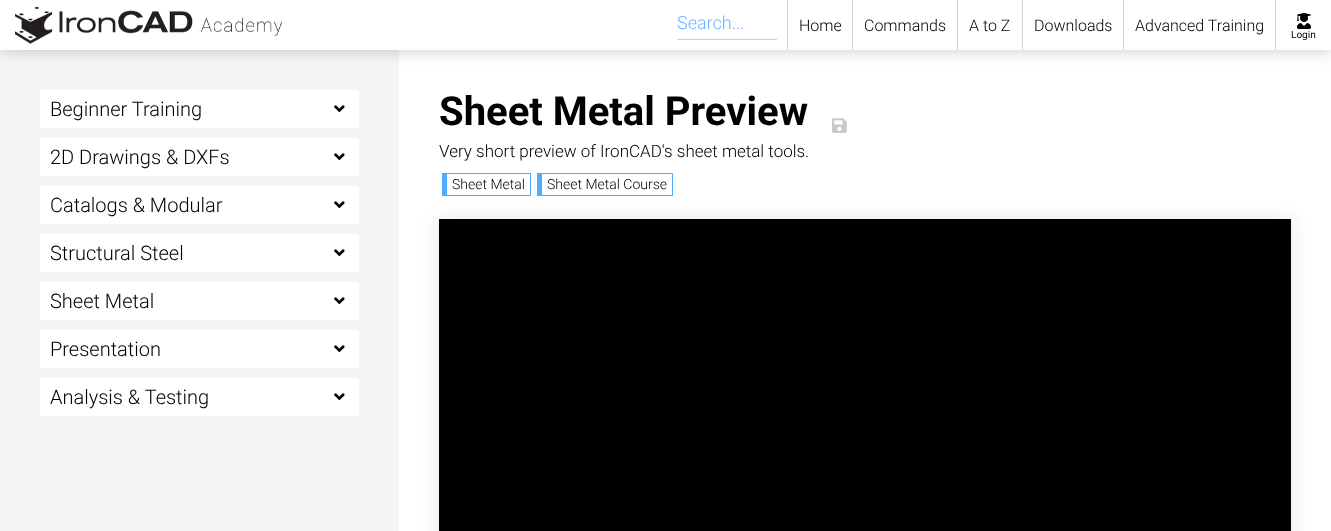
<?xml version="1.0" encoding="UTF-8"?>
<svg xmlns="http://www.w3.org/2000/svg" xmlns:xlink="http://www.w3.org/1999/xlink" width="1331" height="531">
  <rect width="100%" height="100%" fill="#ffffff" />
  <rect y="50" width="399" height="481" fill="#f5f5f5" />
  <rect x="1" y="1" width="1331" height="50" fill="#000000" fill-opacity="0.2" filter="blur(7.5px)" />
  <rect width="1331" height="50" fill="#ffffff" />
  <image x="15" y="6" width="268" height="38" xlink:href="image1.png" />
  <rect x="677" y="39" width="100" height="1" fill="#d1d1d1" />
  <rect x="787" width="1" height="50" fill="#d1d1d1" />
  <rect x="852" width="1" height="50" fill="#d1d1d1" />
  <rect x="957" width="1" height="50" fill="#d1d1d1" />
  <rect x="1022" width="1" height="50" fill="#d1d1d1" />
  <rect x="1123" width="1" height="50" fill="#d1d1d1" />
  <rect x="1275" width="1" height="50" fill="#d1d1d1" />
  <image x="1297" y="13" width="14" height="16" xlink:href="image2.png" />
  <rect x="40" y="90" width="319" height="38" fill="#ffffff" />
  <image x="334" y="105" width="11" height="7" xlink:href="image3.png" />
  <rect x="40" y="138" width="319" height="38" fill="#ffffff" />
  <image x="334" y="153" width="11" height="7" xlink:href="image3.png" />
  <rect x="40" y="186" width="319" height="38" fill="#ffffff" />
  <image x="334" y="201" width="11" height="7" xlink:href="image3.png" />
  <rect x="40" y="234" width="319" height="38" fill="#ffffff" />
  <image x="334" y="249" width="11" height="7" xlink:href="image3.png" />
  <rect x="40" y="282" width="319" height="38" fill="#ffffff" />
  <image x="334" y="297" width="11" height="7" xlink:href="image3.png" />
  <rect x="40" y="330" width="319" height="38" fill="#ffffff" />
  <image x="334" y="345" width="11" height="7" xlink:href="image3.png" />
  <rect x="40" y="378" width="319" height="38" fill="#ffffff" />
  <image x="334" y="393" width="11" height="7" xlink:href="image3.png" />
  <image x="832" y="118" width="15" height="15" xlink:href="image4.png" />
  <rect x="442" y="173" width="89" height="1" fill="#4cacff" />
  <rect x="530" y="173" width="1" height="23" fill="#4cacff" />
  <rect x="442" y="195" width="89" height="1" fill="#4cacff" />
  <rect x="442" y="173" width="5" height="23" fill="#4cacff" />
  <rect x="537" y="173" width="136" height="1" fill="#4cacff" />
  <rect x="672" y="173" width="1" height="23" fill="#4cacff" />
  <rect x="537" y="195" width="136" height="1" fill="#4cacff" />
  <rect x="537" y="173" width="5" height="23" fill="#4cacff" />
  <rect x="439" y="219" width="852" height="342" fill="#000000" fill-opacity="0.1" filter="blur(10px)" />
  <rect x="439" y="219" width="852" height="312" fill="#000000" />
  <text x="677" y="29" style="font-family: Roboto; font-size: 18px; font-weight: 300; fill: #6cb1ff">Search...</text>
  <text x="799" y="31" style="font-family: Roboto; font-size: 16px; font-weight: 300; fill: #000000">Home</text>
  <text x="864" y="31" style="font-family: Roboto; font-size: 16px; font-weight: 300; fill: #000000">Commands</text>
  <text x="969" y="31" style="font-family: Roboto; font-size: 16px; font-weight: 300; fill: #000000">A to Z</text>
  <text x="1034" y="31" style="font-family: Roboto; font-size: 16px; font-weight: 300; fill: #000000">Downloads</text>
  <text x="1135" y="31" style="font-family: Roboto; font-size: 16px; font-weight: 300; fill: #000000">Advanced Training</text>
  <text x="1291" y="38" style="font-family: Roboto; font-size: 10px; fill: #000000">Login</text>
  <text x="50" y="116" style="font-family: Roboto; font-size: 20px; font-weight: 300; fill: #000000">Beginner Training</text>
  <text x="50" y="164" style="font-family: Roboto; font-size: 20px; font-weight: 300; fill: #000000">2D Drawings &amp; DXFs</text>
  <text x="50" y="212" style="font-family: Roboto; font-size: 20px; font-weight: 300; fill: #000000">Catalogs &amp; Modular</text>
  <text x="50" y="260" style="font-family: Roboto; font-size: 20px; font-weight: 300; fill: #000000">Structural Steel</text>
  <text x="50" y="308" style="font-family: Roboto; font-size: 20px; font-weight: 300; fill: #000000">Sheet Metal</text>
  <text x="50" y="356" style="font-family: Roboto; font-size: 20px; font-weight: 300; fill: #000000">Presentation</text>
  <text x="50" y="404" style="font-family: Roboto; font-size: 20px; font-weight: 300; fill: #000000">Analysis &amp; Testing</text>
  <text x="439" y="125" style="font-family: Roboto; font-size: 40px; font-weight: bold; fill: #000000">Sheet Metal Preview</text>
  <text x="439" y="157" style="font-family: Roboto; font-size: 17px; font-weight: 300; fill: #000000">Very short preview of IronCAD's sheet metal tools.</text>
  <text x="452" y="189" style="font-family: Roboto; font-size: 14px; font-weight: 300; fill: #000000">Sheet Metal</text>
  <text x="547" y="189" style="font-family: Roboto; font-size: 14px; font-weight: 300; fill: #000000">Sheet Metal Course</text>
</svg>
